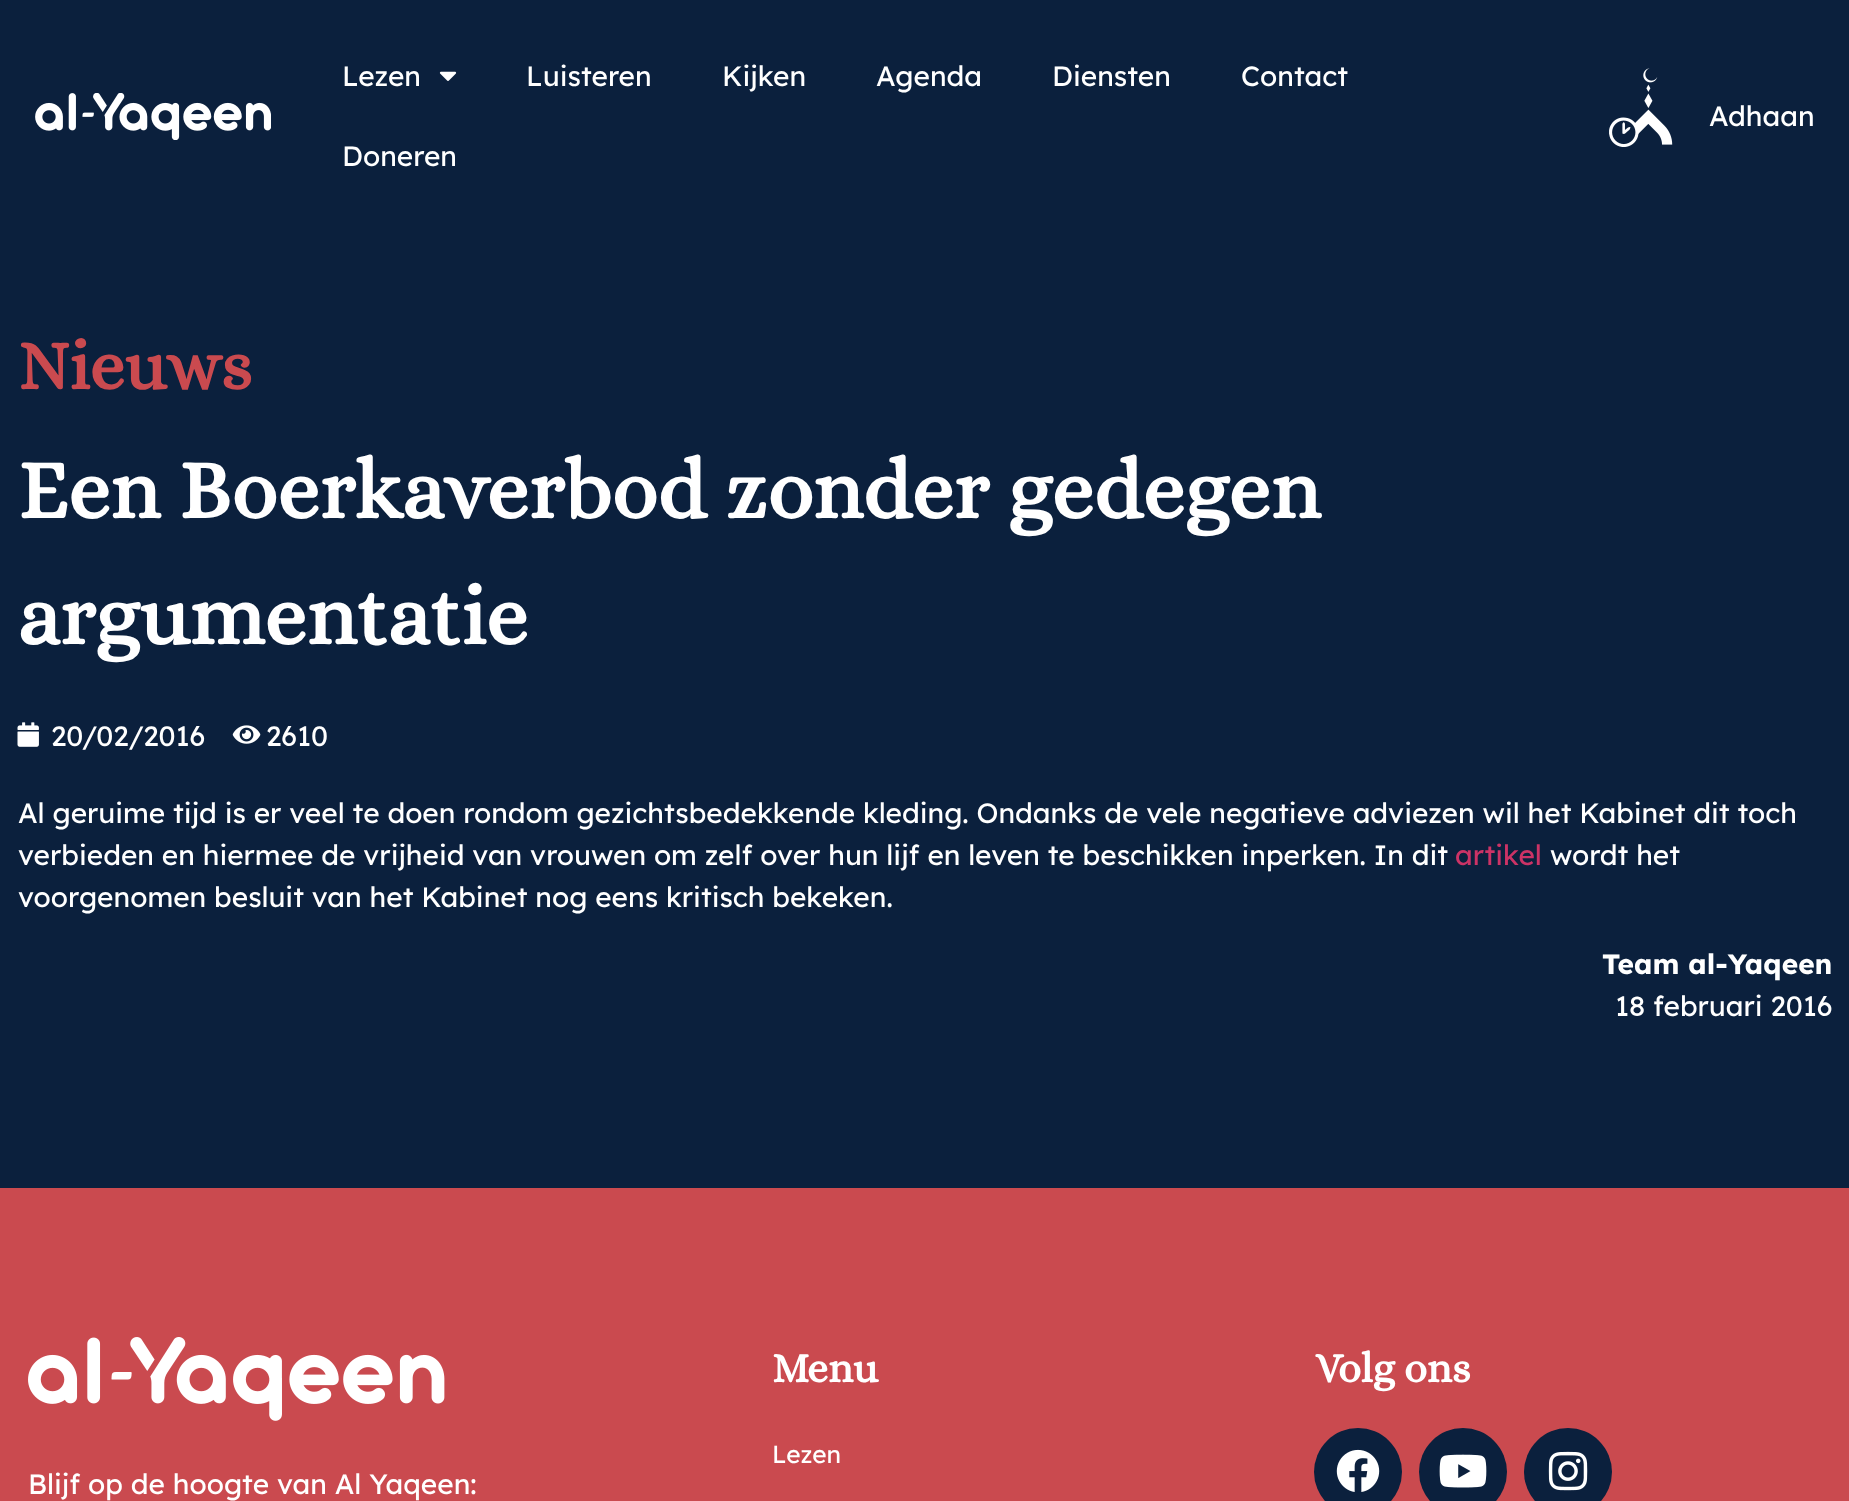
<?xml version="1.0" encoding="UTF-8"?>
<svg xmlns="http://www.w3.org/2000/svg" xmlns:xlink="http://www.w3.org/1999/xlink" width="1849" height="1501">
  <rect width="100%" height="100%" fill="#0b203d" />
  <image x="35" y="93" width="236" height="47" xlink:href="image1.png" />
  <image x="439" y="71" width="18" height="10" xlink:href="image2.png" />
  <image x="1609" y="68" width="64" height="79" xlink:href="image3.png" />
  <image x="17" y="722" width="22" height="25" xlink:href="image4.png" />
  <image x="232" y="725" width="29" height="19" xlink:href="image5.png" />
  <rect y="1188" width="1849" height="313" fill="#ca4a4f" />
  <circle cx="1358" cy="1472" r="44" fill="#0b203d" />
  <image x="1336" y="1449" width="44" height="43" xlink:href="image6.png" />
  <circle cx="1463" cy="1472" r="44" fill="#0b203d" />
  <image x="1439" y="1454" width="48" height="34" xlink:href="image7.png" />
  <circle cx="1568" cy="1472" r="44" fill="#0b203d" />
  <image x="1548" y="1451" width="40" height="40" xlink:href="image8.png" />
  <image x="28" y="1337" width="417" height="84" xlink:href="image9.png" />
  <text x="342" y="86" style="font-family: Lexend Deca; font-size: 28px; fill: #ffffff">Lezen</text>
  <text x="526" y="86" style="font-family: Lexend Deca; font-size: 28px; fill: #ffffff">Luisteren</text>
  <text x="722" y="86" style="font-family: Lexend Deca; font-size: 28px; fill: #ffffff">Kijken</text>
  <text x="876" y="86" style="font-family: Lexend Deca; font-size: 28px; fill: #ffffff">Agenda</text>
  <text x="1052" y="86" style="font-family: Lexend Deca; font-size: 28px; fill: #ffffff">Diensten</text>
  <text x="1241" y="86" style="font-family: Lexend Deca; font-size: 28px; fill: #ffffff">Contact</text>
  <text x="342" y="166" style="font-family: Lexend Deca; font-size: 28px; fill: #ffffff">Doneren</text>
  <text x="1709" y="126" style="font-family: Lexend Deca; font-size: 28px; fill: #ffffff">Adhaan</text>
  <text x="18" y="389" style="font-family: Alice; font-size: 70px; font-weight: bold; fill: #ca4a4f">Nieuws</text>
  <text x="18" y="518" style="font-family: Alice; font-size: 84px; font-weight: bold; fill: #ffffff">Een Boerkaverbod zonder gedegen</text>
  <text x="18" y="644" style="font-family: Alice; font-size: 84px; font-weight: bold; fill: #ffffff">argumentatie</text>
  <text x="51" y="746" style="font-family: Lexend Deca; font-size: 28px; fill: #ffffff">20/02/2016</text>
  <text x="266" y="746" style="font-family: Lexend Deca; font-size: 28px; fill: #ffffff">2610</text>
  <text x="18" y="823" style="font-family: Lexend Deca; font-size: 28px; fill: #ffffff">Al geruime tijd is er veel te doen rondom gezichtsbedekkende kleding. Ondanks de vele negatieve adviezen wil het Kabinet dit toch</text>
  <text x="18" y="865" style="font-family: Lexend Deca; font-size: 28px; fill: #ffffff">verbieden en hiermee de vrijheid van vrouwen om zelf over hun lijf en leven te beschikken inperken. In dit</text>
  <text x="1455" y="865" style="font-family: Lexend Deca; font-size: 28px; fill: #cc3366">artikel</text>
  <text x="1550" y="865" style="font-family: Lexend Deca; font-size: 28px; fill: #ffffff">wordt het</text>
  <text x="18" y="907" style="font-family: Lexend Deca; font-size: 28px; fill: #ffffff">voorgenomen besluit van het Kabinet nog eens kritisch bekeken.</text>
  <text x="1602" y="974" style="font-family: Lexend Deca; font-size: 28px; font-weight: bold; fill: #ffffff">Team al-Yaqeen</text>
  <text x="1615" y="1016" style="font-family: Lexend Deca; font-size: 28px; fill: #ffffff">18 februari 2016</text>
  <text x="772" y="1382" style="font-family: Alice; font-size: 42px; font-weight: bold; fill: #ffffff">Menu</text>
  <text x="772" y="1463" style="font-family: Lexend Deca; font-size: 24.5px; fill: #ffffff">Lezen</text>
  <text x="1315" y="1382" style="font-family: Alice; font-size: 42px; font-weight: bold; fill: #ffffff">Volg ons</text>
  <text x="28" y="1494" style="font-family: Lexend Deca; font-size: 28px; fill: #ffffff">Blijf op de hoogte van Al Yaqeen:</text>
</svg>
